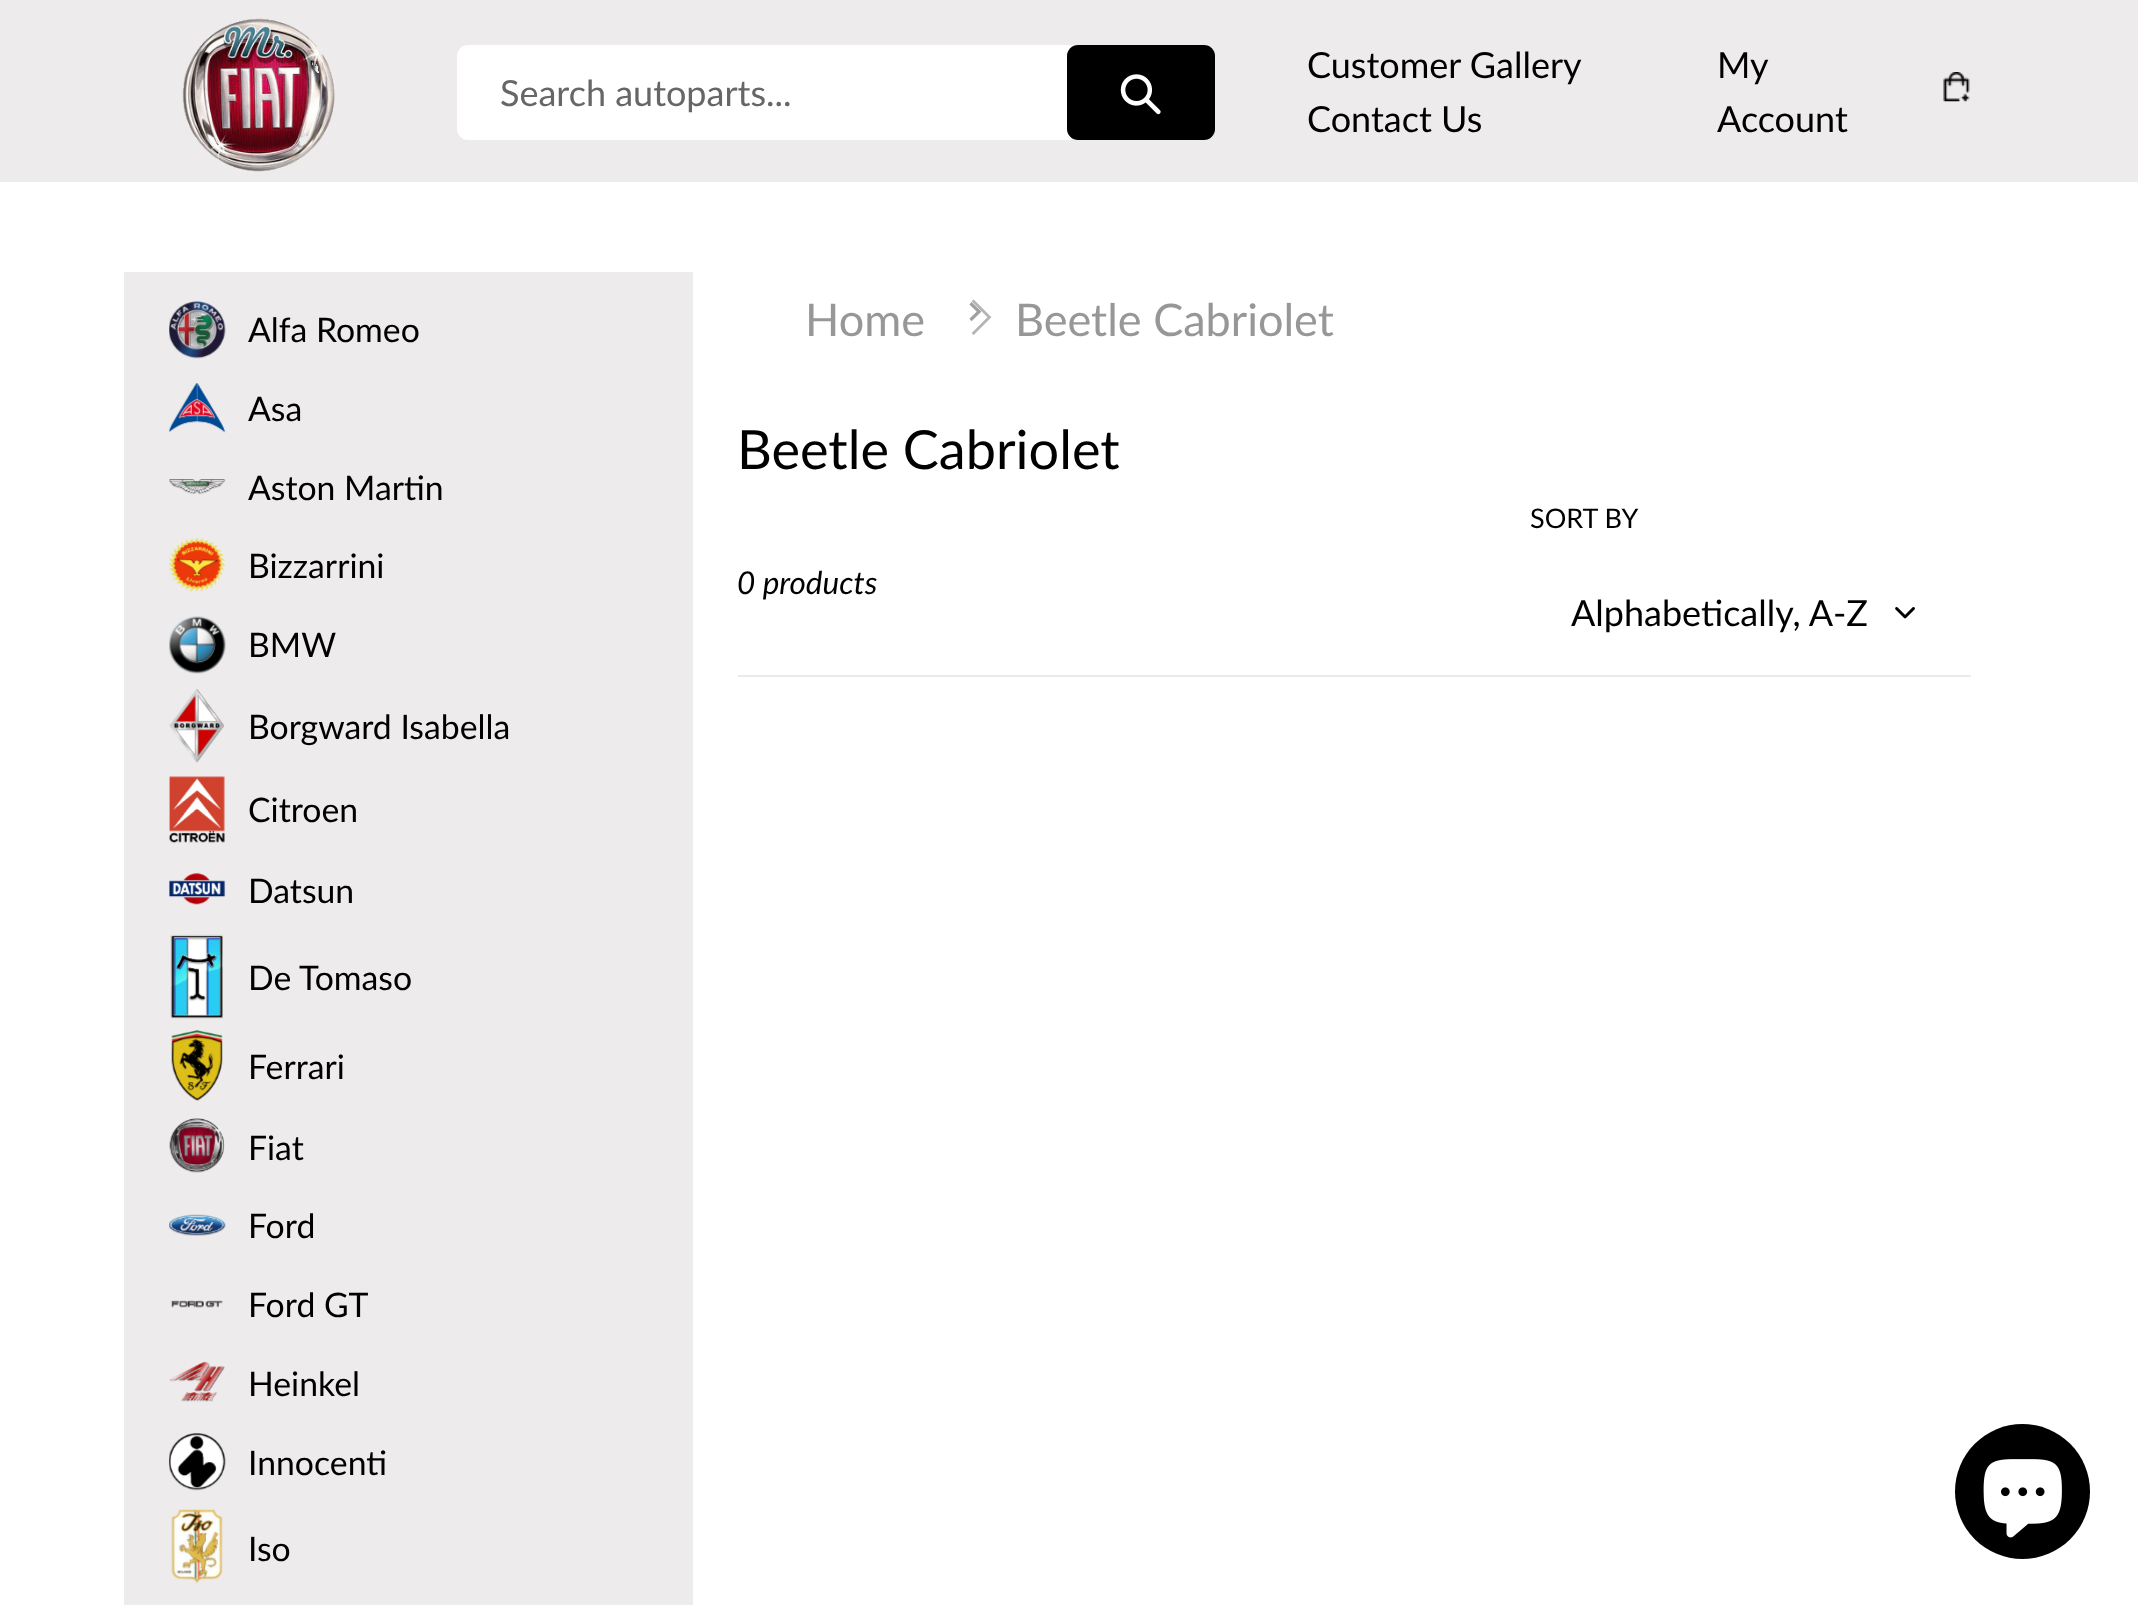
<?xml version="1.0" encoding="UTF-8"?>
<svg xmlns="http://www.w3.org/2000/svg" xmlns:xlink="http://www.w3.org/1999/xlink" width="2138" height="1605">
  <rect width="100%" height="100%" fill="#ffffff" />
  <rect width="2138" height="182" fill="#edebeb" />
  <image x="182" y="18" width="153" height="154" xlink:href="image1.png" />
  <rect x="457" y="45" width="756" height="95" rx="11" fill="#ffffff" />
  <rect x="1067" y="45" width="148" height="95" rx="11" fill="#000000" />
  <image x="1120" y="74" width="41" height="41" xlink:href="image2.png" />
  <image x="1943" y="72" width="27" height="30" xlink:href="image3.png" />
  <rect x="124" y="272" width="569" height="1333" fill="#edebeb" />
  <image x="169" y="301" width="57" height="58" xlink:href="image4.png" />
  <image x="169" y="383" width="57" height="50" xlink:href="image5.png" />
  <image x="169" y="479" width="57" height="16" xlink:href="image6.png" />
  <image x="169" y="537" width="57" height="56" xlink:href="image7.png" />
  <image x="169" y="616" width="57" height="58" xlink:href="image8.png" />
  <image x="169" y="689" width="55" height="74" xlink:href="image9.png" />
  <image x="169" y="776" width="56" height="67" xlink:href="image10.png" />
  <image x="169" y="872" width="57" height="33" xlink:href="image11.png" />
  <image x="170" y="934" width="53" height="85" xlink:href="image12.png" />
  <image x="171" y="1030" width="52" height="71" xlink:href="image13.png" />
  <image x="169" y="1118" width="56" height="55" xlink:href="image14.png" />
  <image x="169" y="1214" width="57" height="22" xlink:href="image15.png" />
  <image x="171" y="1300" width="52" height="8" xlink:href="image16.png" />
  <image x="169" y="1361" width="56" height="41" xlink:href="image17.png" />
  <image x="169" y="1433" width="57" height="58" xlink:href="image18.png" />
  <image x="171" y="1509" width="52" height="75" xlink:href="image19.png" />
  <image x="969" y="299" width="23" height="36" xlink:href="image20.png" />
  <rect x="738" y="675" width="1233" height="2" fill="#ebebeb" />
  <image x="1895" y="607" width="20" height="12" xlink:href="image21.png" />
  <circle cx="2022.5" cy="1491.5" r="67.5" fill="#000000" />
  <image x="1983" y="1459" width="79" height="79" xlink:href="image22.png" />
  <text x="500" y="106" style="font-family: Lato; font-size: 36px; fill: #666666">Search autoparts...</text>
  <text x="1307" y="78" style="font-family: Lato; font-size: 36px; fill: #000000">Customer Gallery</text>
  <text x="1307" y="132" style="font-family: Lato; font-size: 36px; fill: #000000">Contact Us</text>
  <text x="1717" y="78" style="font-family: Lato; font-size: 36px; fill: #000000">My</text>
  <text x="1717" y="132" style="font-family: Lato; font-size: 36px; fill: #000000">Account</text>
  <text x="248" y="342" style="font-family: Lato; font-size: 33.75px; fill: #000000">Alfa Romeo</text>
  <text x="248" y="421" style="font-family: Lato; font-size: 33.75px; fill: #000000">Asa</text>
  <text x="248" y="500" style="font-family: Lato; font-size: 33.75px; fill: #000000">Aston Martin</text>
  <text x="248" y="578" style="font-family: Lato; font-size: 33.75px; fill: #000000">Bizzarrini</text>
  <text x="248" y="657" style="font-family: Lato; font-size: 33.75px; fill: #000000">BMW</text>
  <text x="248" y="739" style="font-family: Lato; font-size: 33.75px; fill: #000000">Borgward Isabella</text>
  <text x="248" y="822" style="font-family: Lato; font-size: 33.75px; fill: #000000">Citroen</text>
  <text x="248" y="903" style="font-family: Lato; font-size: 33.75px; fill: #000000">Datsun</text>
  <text x="248" y="990" style="font-family: Lato; font-size: 33.75px; fill: #000000">De Tomaso</text>
  <text x="248" y="1079" style="font-family: Lato; font-size: 33.75px; fill: #000000">Ferrari</text>
  <text x="248" y="1160" style="font-family: Lato; font-size: 33.75px; fill: #000000">Fiat</text>
  <text x="248" y="1238" style="font-family: Lato; font-size: 33.75px; fill: #000000">Ford</text>
  <text x="248" y="1317" style="font-family: Lato; font-size: 33.75px; fill: #000000">Ford GT</text>
  <text x="248" y="1396" style="font-family: Lato; font-size: 33.75px; fill: #000000">Heinkel</text>
  <text x="248" y="1475" style="font-family: Lato; font-size: 33.75px; fill: #000000">Innocenti</text>
  <text x="248" y="1561" style="font-family: Lato; font-size: 33.75px; fill: #000000">Iso</text>
  <text x="805" y="336" style="font-family: Lato; font-size: 45px; fill: #979797">Home</text>
  <text x="1015" y="336" style="font-family: Lato; font-size: 45px; fill: #979797">Beetle Cabriolet</text>
  <text x="737" y="469" style="font-family: Lato; font-size: 54px; fill: #000000">Beetle Cabriolet</text>
  <text x="737" y="594" style="font-family: Lato; font-size: 31.5px; font-style: italic; fill: #000000">0 products</text>
  <text x="1530" y="528" style="font-family: Lato; font-size: 27px; fill: #000000">SORT BY</text>
  <text x="1571" y="626" style="font-family: Lato; font-size: 36px; fill: #000000">Alphabetically, A-Z</text>
</svg>
